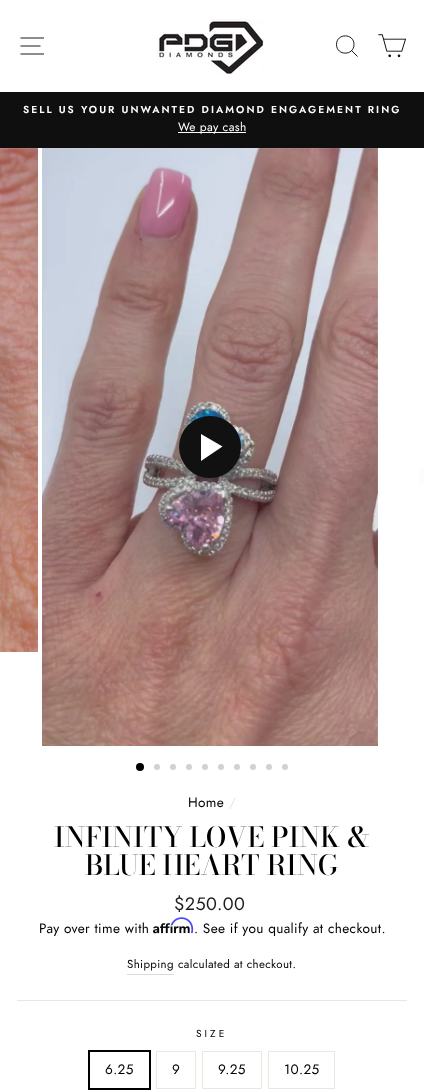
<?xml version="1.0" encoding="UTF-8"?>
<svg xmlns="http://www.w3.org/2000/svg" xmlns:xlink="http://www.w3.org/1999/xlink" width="424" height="1090">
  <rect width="100%" height="100%" fill="#ffffff" />
  <path d="M 20.5 38 h 23.5 m -23.5 8 h 20 m -20 8 h 23.5" fill="none" stroke="#000000" stroke-width="0.9" />
  <image x="156" y="19" width="108" height="55" xlink:href="image1.png" />
  <path d="M 354 44.5 c 0 11.5 -17.5 11.5 -17.5 0 c 0 -11.5 17.5 -11.5 17.5 0 z m 3.5 12 l -6 -6" fill="none" stroke="#000000" stroke-width="0.9" />
  <image x="378" y="34" width="28" height="24" xlink:href="image2.png" />
  <rect y="92" width="424" height="56" fill="#0f0f0f" />
  <rect x="178" y="132" width="68" height="1" fill="#ffffff" />
  <image x="0" y="148" width="38" height="504" xlink:href="image3.png" />
  <image x="42" y="148" width="336" height="598" xlink:href="image4.png" />
  <circle cx="210" cy="447" r="31" fill="#111111" />
  <path d="M 201 434 v 27 l 21.5 -14.5 z" fill="#ffffff" />
  <rect x="419" y="469" width="5" height="16" fill="#fafcff" />
  <circle cx="140" cy="767" r="4" fill="#000000" />
  <circle cx="157" cy="767" r="3" fill="#d1d1d1" />
  <circle cx="173" cy="767" r="3" fill="#d1d1d1" />
  <circle cx="189" cy="767" r="3" fill="#d1d1d1" />
  <circle cx="205" cy="767" r="3" fill="#d1d1d1" />
  <circle cx="221" cy="767" r="3" fill="#d1d1d1" />
  <circle cx="237" cy="767" r="3" fill="#d1d1d1" />
  <circle cx="253" cy="767" r="3" fill="#d1d1d1" />
  <circle cx="269" cy="767" r="3" fill="#d1d1d1" />
  <circle cx="285" cy="767" r="3" fill="#d1d1d1" />
  <image x="153" y="923" width="37" height="11" xlink:href="image6.png" />
  <image x="170" y="917" width="24" height="17" xlink:href="image5.png" />
  <rect x="127" y="974" width="47" height="1" fill="#d9d9d9" />
  <rect x="17" y="1000" width="390" height="1" fill="#e8e8e1" />
  <rect x="89" y="1051" width="61" height="38" fill="none" stroke="#000000" stroke-width="2" />
  <rect x="156.5" y="1051.5" width="39" height="37" fill="none" stroke="#e8e8e1" />
  <rect x="202.5" y="1051.5" width="59" height="37" fill="none" stroke="#e8e8e1" />
  <rect x="268.5" y="1051.5" width="66" height="37" fill="none" stroke="#e8e8e1" />
  <text x="23" y="113" style="font-family: Jost; font-size: 10.2px; font-weight: 600; letter-spacing: 2.05px; fill: #ffffff">SELL US YOUR UNWANTED DIAMOND ENGAGEMENT RING</text>
  <text x="178" y="131" style="font-family: Jost; font-size: 12px; letter-spacing: 0.35px; fill: #ffffff">We pay cash</text>
  <text x="188" y="807" style="font-family: Jost; font-size: 13.6px; letter-spacing: 0.35px; fill: #000000">Home</text>
  <text x="229" y="807" style="font-family: Jost; font-size: 13.6px; letter-spacing: 0.35px; fill: #e8e8e1">/</text>
  <text x="54" y="847" style="font-family: Bodoni Moda; font-size: 27.75px; font-weight: 500; fill: #000000">INFINITY LOVE PINK &amp;</text>
  <text x="85" y="875" style="font-family: Bodoni Moda; font-size: 27.75px; font-weight: 500; fill: #000000">BLUE HEART RING</text>
  <text x="174" y="910" style="font-family: Jost; font-size: 18px; letter-spacing: 0.35px; fill: #1c1d1d">$250.00</text>
  <text x="39" y="933" style="font-family: Jost; font-size: 13.6px; letter-spacing: 0.35px; fill: #000000">Pay over time with</text>
  <text x="194" y="933" style="font-family: Jost; font-size: 13.6px; letter-spacing: 0.35px; fill: #000000">. See if you qualify at checkout.</text>
  <text x="127" y="968" style="font-family: Jost; font-size: 11.5px; letter-spacing: 0.35px; fill: #000000">Shipping</text>
  <text x="178" y="968" style="font-family: Jost; font-size: 11.5px; letter-spacing: 0.35px; fill: #000000">calculated at checkout.</text>
  <text x="196" y="1037" style="font-family: Jost; font-size: 10.2px; letter-spacing: 3px; fill: #000000">SIZE</text>
  <text x="105" y="1074" style="font-family: Jost; font-size: 13.6px; letter-spacing: 0.35px; fill: #000000">6.25</text>
  <text x="172" y="1074" style="font-family: Jost; font-size: 13.6px; letter-spacing: 0.35px; fill: #000000">9</text>
  <text x="218" y="1074" style="font-family: Jost; font-size: 13.6px; letter-spacing: 0.35px; fill: #000000">9.25</text>
  <text x="284" y="1074" style="font-family: Jost; font-size: 13.6px; letter-spacing: 0.35px; fill: #000000">10.25</text>
</svg>
